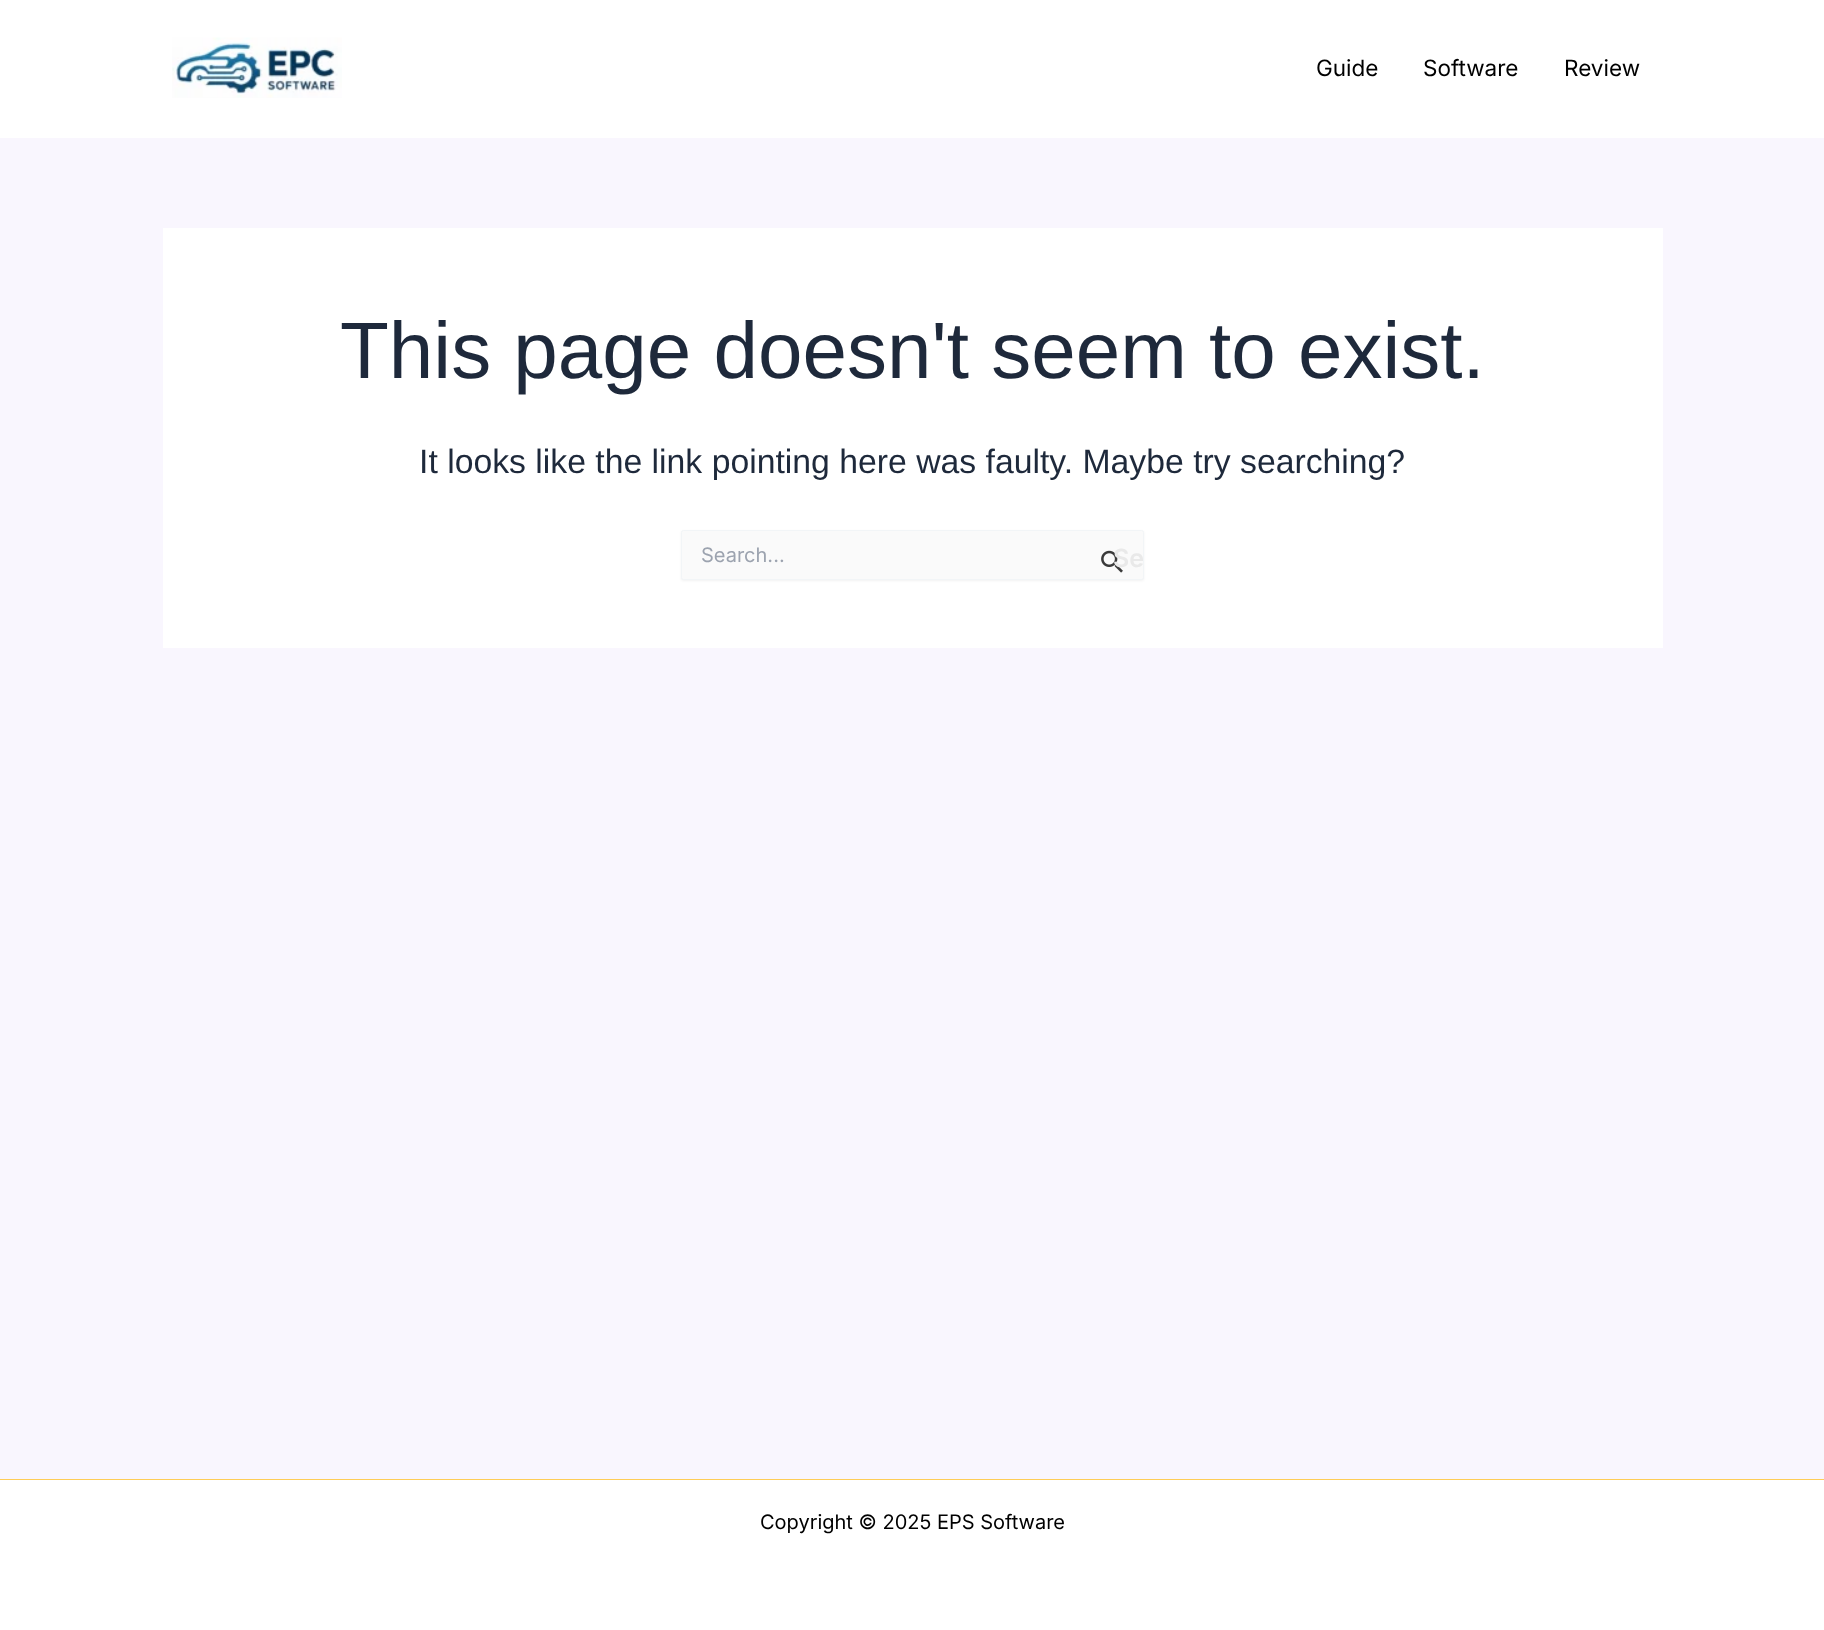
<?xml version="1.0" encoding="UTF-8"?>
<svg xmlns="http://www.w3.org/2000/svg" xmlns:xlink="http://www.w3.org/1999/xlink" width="1824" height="1630">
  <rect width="100%" height="100%" fill="#f9f6fe" />
  <rect width="1824" height="138" fill="#ffffff" />
  <image x="172" y="37" width="170" height="61" xlink:href="image1.png" />
  <rect x="163" y="228" width="1500" height="420" fill="#ffffff" />
  <rect x="681" y="531" width="463" height="50" rx="2.5" fill="#000000" fill-opacity="0.05" filter="blur(1px)" />
  <rect x="681.5" y="530.5" width="462" height="49" rx="2" fill="#fafafa" stroke="#f2f5f7" />
  <image x="1101" y="550" width="22" height="23" xlink:href="image2.png" />
  <rect y="1480" width="1824" height="150" fill="#ffffff" />
  <rect y="1479" width="1824" height="1" fill="#ffcd57" />
  <text x="1316" y="76" style="font-family: Inter; font-size: 22.5px; fill: #000000">Guide</text>
  <text x="1423" y="76" style="font-family: Inter; font-size: 22.5px; fill: #000000">Software</text>
  <text x="1564" y="76" style="font-family: Inter; font-size: 22.5px; fill: #000000">Review</text>
  <text x="340" y="378" style="font-family: Liberation Sans; font-size: 80px; fill: #1e293b">This page doesn't seem to exist.</text>
  <text x="419" y="473" style="font-family: Liberation Sans; font-size: 33.75px; fill: #1e293b">It looks like the link pointing here was faulty. Maybe try searching?</text>
  <text x="701" y="562" style="font-family: Inter; font-size: 20px; fill: #9ca3af">Search...</text>
  <text x="1113" y="567" style="font-family: Inter; font-size: 25px; font-weight: 600; fill: #e9e9e9">Se</text>
  <text x="760" y="1529" style="font-family: Inter; font-size: 20px; fill: #000000">Copyright © 2025 EPS Software</text>
</svg>
